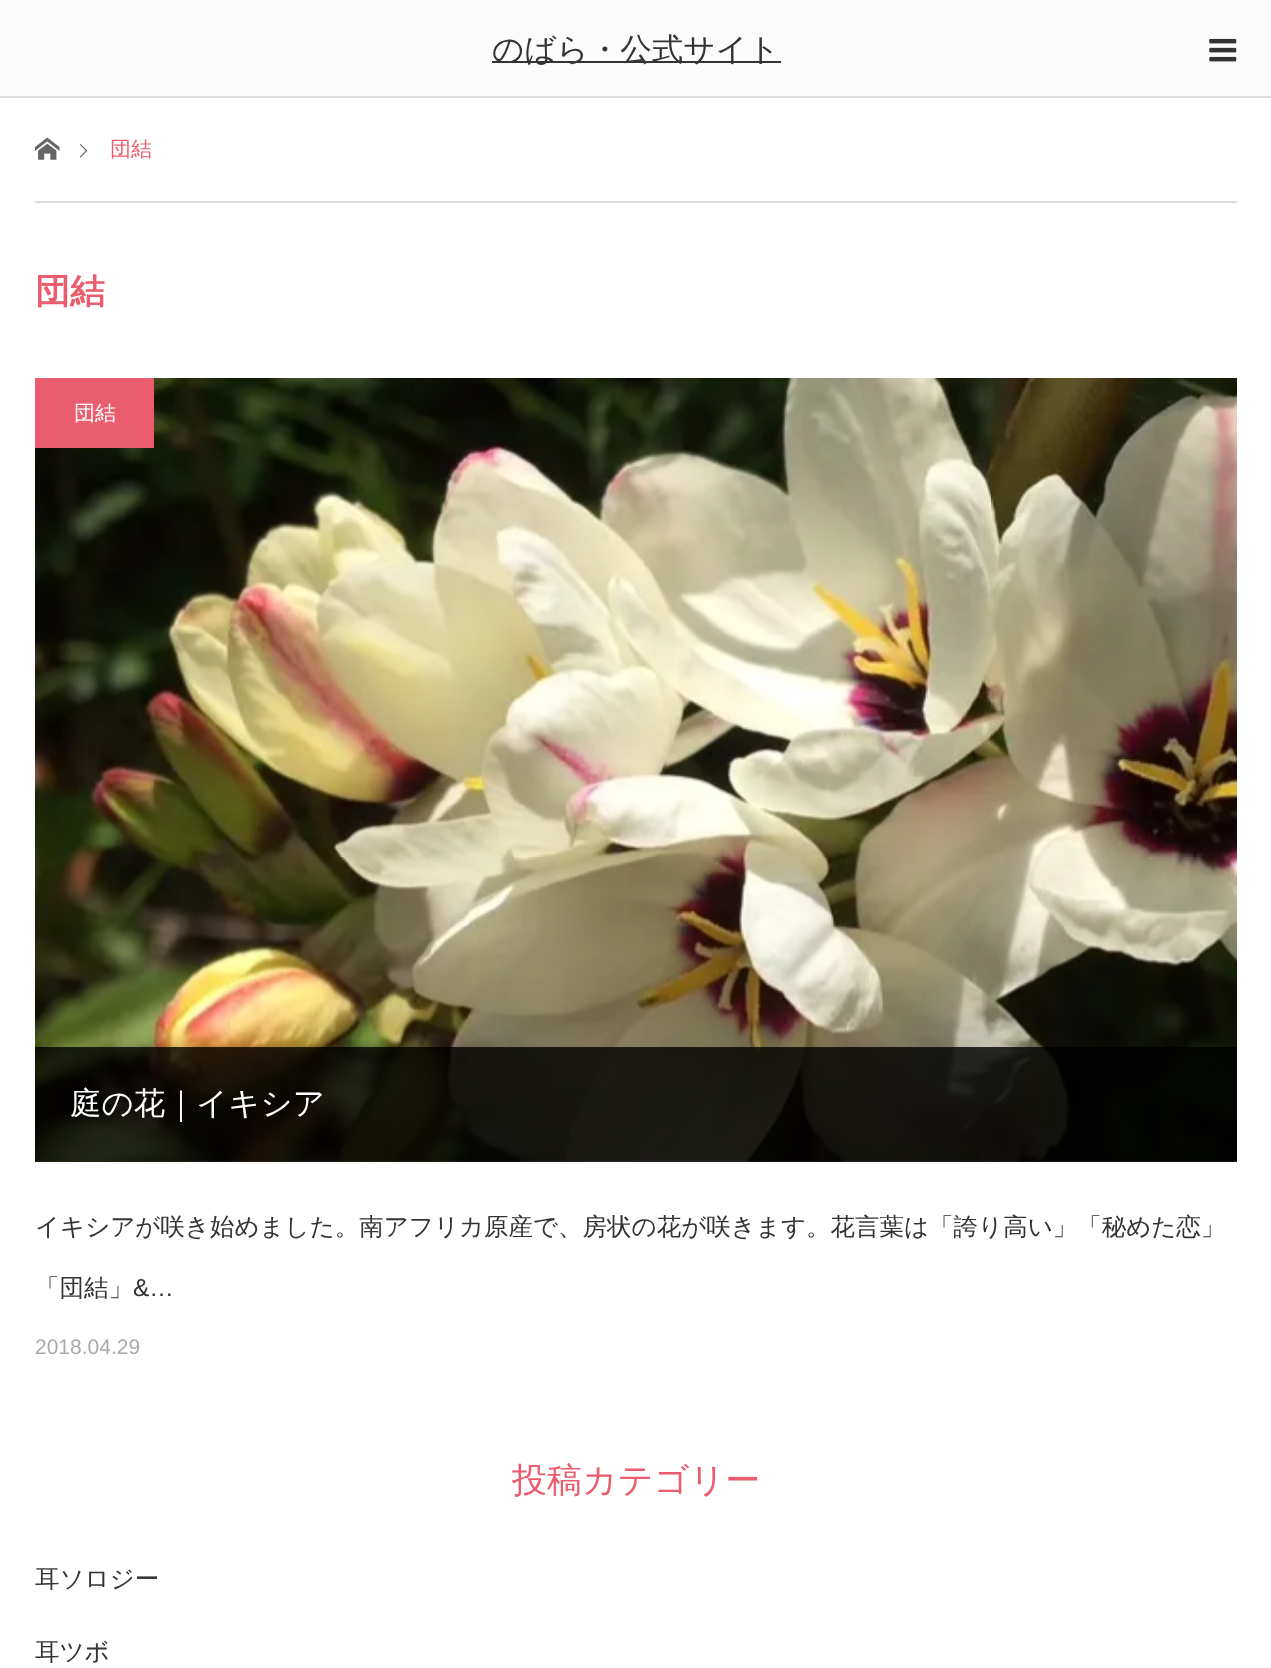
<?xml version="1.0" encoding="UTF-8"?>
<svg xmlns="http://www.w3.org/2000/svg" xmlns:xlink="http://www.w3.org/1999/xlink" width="1271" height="1668">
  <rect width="100%" height="100%" fill="#ffffff" />
  <rect width="1271" height="96" fill="#fbfbfb" />
  <rect y="96" width="1271" height="2" fill="#dddddd" />
  <rect x="492" y="61" width="289" height="2" fill="#333333" />
  <image x="1209" y="38" width="28" height="24" xlink:href="image1.png" />
  <image x="35" y="137" width="25" height="23" xlink:href="image2.png" />
  <image x="79" y="144" width="9" height="14" xlink:href="image3.png" />
  <rect x="35" y="201" width="1202" height="2" fill="#dddddd" />
  <image x="35" y="378" width="1202" height="784" xlink:href="image4.png" />
  <rect x="35" y="378" width="119" height="70" fill="#ea5d6e" />
  <rect x="35" y="1047" width="1202" height="115" fill="#000000" fill-opacity="0.8" />
  <text x="492" y="60" style="font-family: WenQuanYi Zen Hei; font-size: 31.5px; font-weight: 500; fill: #333333">のばら・公式サイト</text>
  <text x="110" y="156" style="font-family: WenQuanYi Zen Hei; font-size: 21px; font-weight: 500; fill: #ea5d6e">団結</text>
  <text x="35" y="303" style="font-family: WenQuanYi Zen Hei; font-size: 35px; font-weight: bold; fill: #ea5d6e">団結</text>
  <text x="74" y="420" style="font-family: WenQuanYi Zen Hei; font-size: 21px; font-weight: 500; fill: #ffffff">団結</text>
  <text x="70" y="1114" style="font-family: WenQuanYi Zen Hei; font-size: 31.5px; font-weight: 500; fill: #ffffff">庭の花｜イキシア</text>
  <text x="35" y="1235" style="font-family: WenQuanYi Zen Hei; font-size: 24.5px; font-weight: 500; fill: #333333">イキシアが咲き始めました。南アフリカ原産で、房状の花が咲きます。花言葉は「誇り高い」「秘めた恋」</text>
  <text x="35" y="1296" style="font-family: WenQuanYi Zen Hei; font-size: 24.5px; font-weight: 500; fill: #333333">「団結」</text>
  <text x="133" y="1296" style="font-family: Liberation Sans; font-size: 24.5px; fill: #333333">&amp;…</text>
  <text x="35" y="1354" style="font-family: Liberation Sans; font-size: 21px; fill: #aaaaaa">2018.04.29</text>
  <text x="512" y="1492" style="font-family: WenQuanYi Zen Hei; font-size: 35px; font-weight: 500; fill: #ea5d6e">投稿カテゴリー</text>
  <text x="35" y="1587" style="font-family: WenQuanYi Zen Hei; font-size: 24.5px; font-weight: 500; fill: #333333">耳ソロジー</text>
  <text x="35" y="1660" style="font-family: WenQuanYi Zen Hei; font-size: 24.5px; font-weight: 500; fill: #333333">耳ツボ</text>
</svg>
